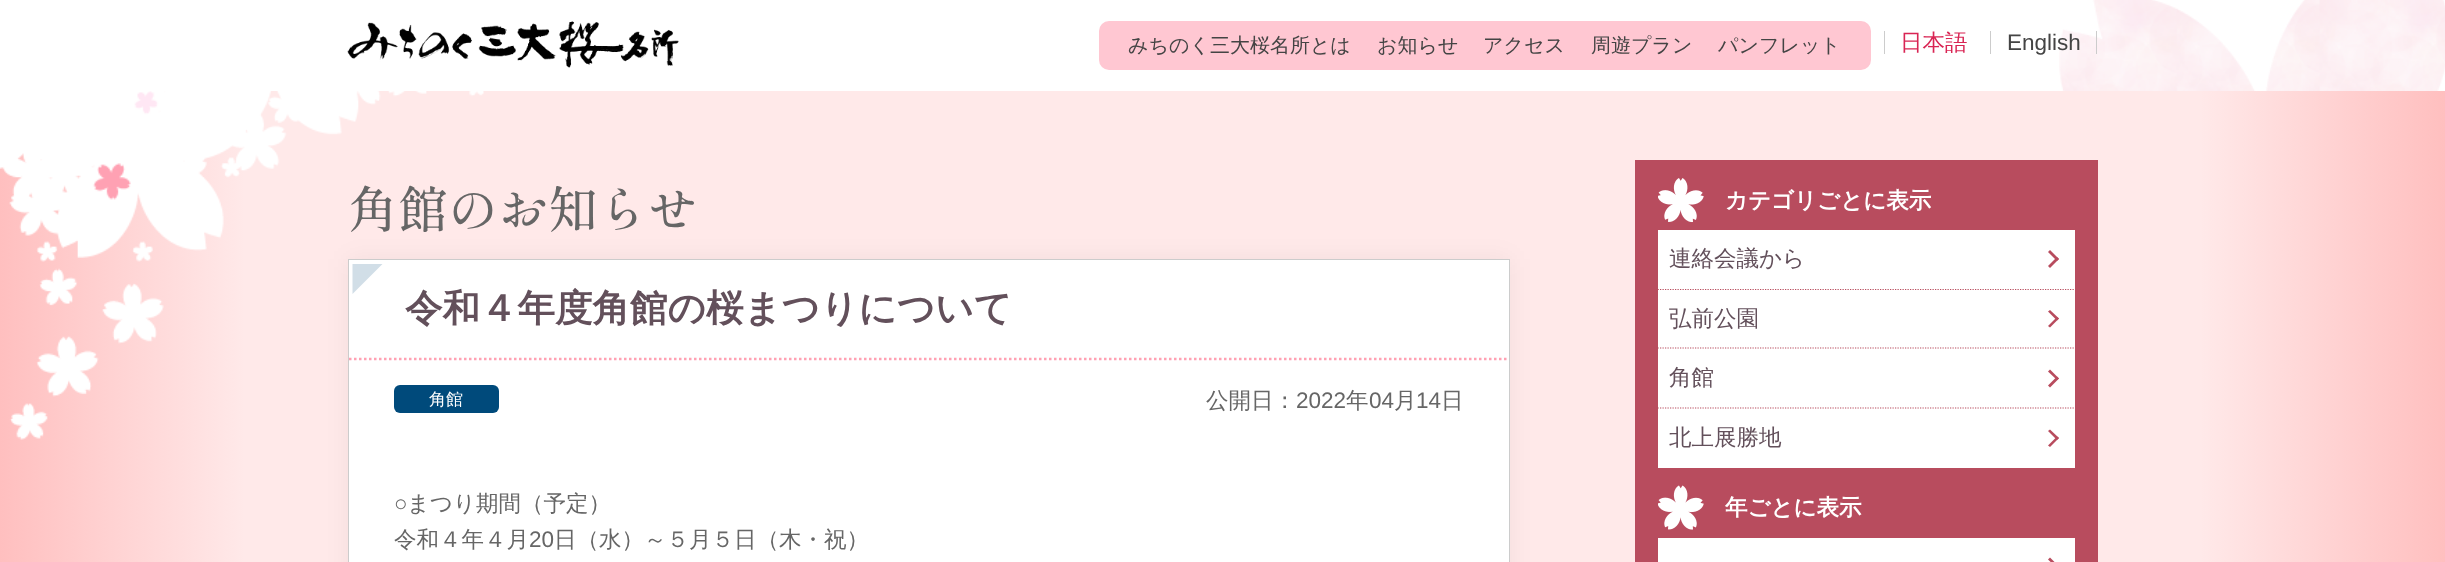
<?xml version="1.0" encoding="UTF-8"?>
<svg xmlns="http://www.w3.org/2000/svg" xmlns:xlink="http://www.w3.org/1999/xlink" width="2445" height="562">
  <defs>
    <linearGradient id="g1" gradientUnits="userSpaceOnUse" x1="0" y1="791" x2="2445" y2="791"><stop offset="0" stop-color="#ffbfbf" /><stop offset="0.1" stop-color="#ffe9e9" /><stop offset="0.9" stop-color="#ffe9e9" /><stop offset="1" stop-color="#ffbfbf" /></linearGradient>
  </defs>
  <rect width="100%" height="100%" fill="#ffffff" />
  <image x="2059" y="0" width="386" height="91" xlink:href="image1.png" />
  <image x="347" y="21" width="332" height="47" xlink:href="image2.png" />
  <rect x="1099" y="21" width="772" height="49" rx="10" fill="#ffc7d2" />
  <rect x="1884" y="31" width="1" height="23" fill="#cccccc" />
  <rect x="2096" y="31" width="1" height="23" fill="#cccccc" />
  <rect x="1990" y="31" width="1" height="23" fill="#cccccc" />
  <rect y="91" width="2445" height="471" fill="url(#g1)" />
  <image x="0" y="91" width="484" height="349" xlink:href="image3.png" />
  <rect x="348" y="259" width="1162" height="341" fill="#000000" fill-opacity="0.05" filter="blur(12.5px)" />
  <rect x="348.5" y="259.5" width="1161" height="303" fill="#ffffff" stroke="#cccccc" />
  <path d="M 349 359 h 1160" fill="none" stroke="#ffa1b3" stroke-width="2.5" stroke-dasharray="2.5 2.5" />
  <path d="M 352.5 264 h 30 l -15 15 z" fill="#d1dee7" />
  <path d="M 352.5 294 v -30 l 15 15 z" fill="#004a7b" fill-opacity="0.18" />
  <rect x="394" y="385" width="105" height="28" rx="6" fill="#004a7b" />
  <rect x="1635" y="160" width="463" height="402" fill="#b84c5e" />
  <image x="1658" y="178" width="46" height="45" xlink:href="image4.png" />
  <rect x="1658" y="230" width="417" height="238" fill="#ffffff" />
  <path d="M 1657.5 289.5 h 417.5" fill="none" stroke="#b84c5e" stroke-width="1.2" stroke-dasharray="1.25 1.25" />
  <path d="M 2050 250 l 9 9 l -2 2 l -9 -9 z" fill="#b84c5e" />
  <path d="M 2057 257 l 2 2 l -9 9 l -2 -2 z" fill="#b84c5e" />
  <path d="M 1657.5 348 h 417.5" fill="none" stroke="#b84c5e" stroke-width="1.2" stroke-dasharray="1.25 1.25" />
  <path d="M 2050 310 l 9 8.5 l -2 2 l -9 -9 z" fill="#b84c5e" />
  <path d="M 2057 317 l 2 1.5 l -9 9 l -2 -1.5 z" fill="#b84c5e" />
  <path d="M 1657.5 408 h 417.5" fill="none" stroke="#b84c5e" stroke-width="1.2" stroke-dasharray="1.25 1.25" />
  <path d="M 2050 369.5 l 9 9 l -2 1.5 l -9 -8.5 z" fill="#b84c5e" />
  <path d="M 2057 376.5 l 2 2 l -9 9 l -2 -2 z" fill="#b84c5e" />
  <path d="M 2050 429.5 l 9 8.5 l -2 2 l -9 -9 z" fill="#b84c5e" />
  <path d="M 2057 436.5 l 2 1.5 l -9 9 l -2 -1.5 z" fill="#b84c5e" />
  <image x="1658" y="485" width="46" height="45" xlink:href="image5.png" />
  <rect x="1658" y="538" width="417" height="24" fill="#ffffff" />
  <path d="M 2050 557.5 l 9 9 l -2 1.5 l -9 -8.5 z" fill="#b84c5e" />
  <text x="1128" y="52" style="font-family: WenQuanYi Zen Hei; font-size: 20px; font-weight: 500; fill: #444444">みちのく三大桜名所とは</text>
  <text x="1377" y="52" style="font-family: WenQuanYi Zen Hei; font-size: 20px; font-weight: 500; fill: #444444">お知らせ</text>
  <text x="1483" y="52" style="font-family: WenQuanYi Zen Hei; font-size: 20px; font-weight: 500; fill: #444444">アクセス</text>
  <text x="1591" y="52" style="font-family: WenQuanYi Zen Hei; font-size: 20px; font-weight: 500; fill: #444444">周遊プラン</text>
  <text x="1718" y="52" style="font-family: WenQuanYi Zen Hei; font-size: 20px; font-weight: 500; fill: #444444">パンフレット</text>
  <text x="1900" y="50" style="font-family: WenQuanYi Zen Hei; font-size: 22.5px; font-weight: 500; fill: #d92554">日本語</text>
  <text x="2007" y="50" style="font-family: Liberation Sans; font-size: 22.5px; fill: #444444">English</text>
  <text x="348" y="228" style="font-family: 'Shippori Mincho B1'; font-size: 50px; font-weight: 500; fill: #666666">角館のお知らせ</text>
  <text x="405" y="321" style="font-family: WenQuanYi Zen Hei; font-size: 37.5px; font-weight: bold; fill: #63505b">令和４年度角館の桜まつりについて</text>
  <text x="429" y="405" style="font-family: WenQuanYi Zen Hei; font-size: 17px; font-weight: 500; fill: #ffffff">角館</text>
  <text x="1206" y="408" style="font-family: WenQuanYi Zen Hei; font-size: 22.5px; font-weight: 500; fill: #666666">公開日：</text>
  <text x="1296" y="408" style="font-family: Liberation Sans; font-size: 22.5px; fill: #666666">2022</text>
  <text x="1346" y="408" style="font-family: WenQuanYi Zen Hei; font-size: 22.5px; font-weight: 500; fill: #666666">年</text>
  <text x="1369" y="408" style="font-family: Liberation Sans; font-size: 22.5px; fill: #666666">04</text>
  <text x="1394" y="408" style="font-family: WenQuanYi Zen Hei; font-size: 22.5px; font-weight: 500; fill: #666666">月</text>
  <text x="1416" y="408" style="font-family: Liberation Sans; font-size: 22.5px; fill: #666666">14</text>
  <text x="1441" y="408" style="font-family: WenQuanYi Zen Hei; font-size: 22.5px; font-weight: 500; fill: #666666">日</text>
  <text x="394" y="511" style="font-family: Liberation Sans; font-size: 22.5px; fill: #666666">○</text>
  <text x="407" y="511" style="font-family: WenQuanYi Zen Hei; font-size: 22.5px; font-weight: 500; fill: #666666">まつり期間（予定）</text>
  <text x="394" y="547" style="font-family: WenQuanYi Zen Hei; font-size: 22.5px; font-weight: 500; fill: #666666">令和４年４月</text>
  <text x="529" y="547" style="font-family: Liberation Sans; font-size: 22.5px; fill: #666666">20</text>
  <text x="554" y="547" style="font-family: WenQuanYi Zen Hei; font-size: 22.5px; font-weight: 500; fill: #666666">日（水）～５月５日（木・祝）</text>
  <text x="1725" y="208" style="font-family: WenQuanYi Zen Hei; font-size: 22.5px; font-weight: bold; fill: #ffffff">カテゴリごとに表示</text>
  <text x="1669" y="266" style="font-family: WenQuanYi Zen Hei; font-size: 22.5px; font-weight: 500; fill: #63505b">連絡会議から</text>
  <text x="1669" y="326" style="font-family: WenQuanYi Zen Hei; font-size: 22.5px; font-weight: 500; fill: #63505b">弘前公園</text>
  <text x="1669" y="385" style="font-family: WenQuanYi Zen Hei; font-size: 22.5px; font-weight: 500; fill: #63505b">角館</text>
  <text x="1669" y="445" style="font-family: WenQuanYi Zen Hei; font-size: 22.5px; font-weight: 500; fill: #63505b">北上展勝地</text>
  <text x="1725" y="515" style="font-family: WenQuanYi Zen Hei; font-size: 22.5px; font-weight: bold; fill: #ffffff">年ごとに表示</text>
</svg>
